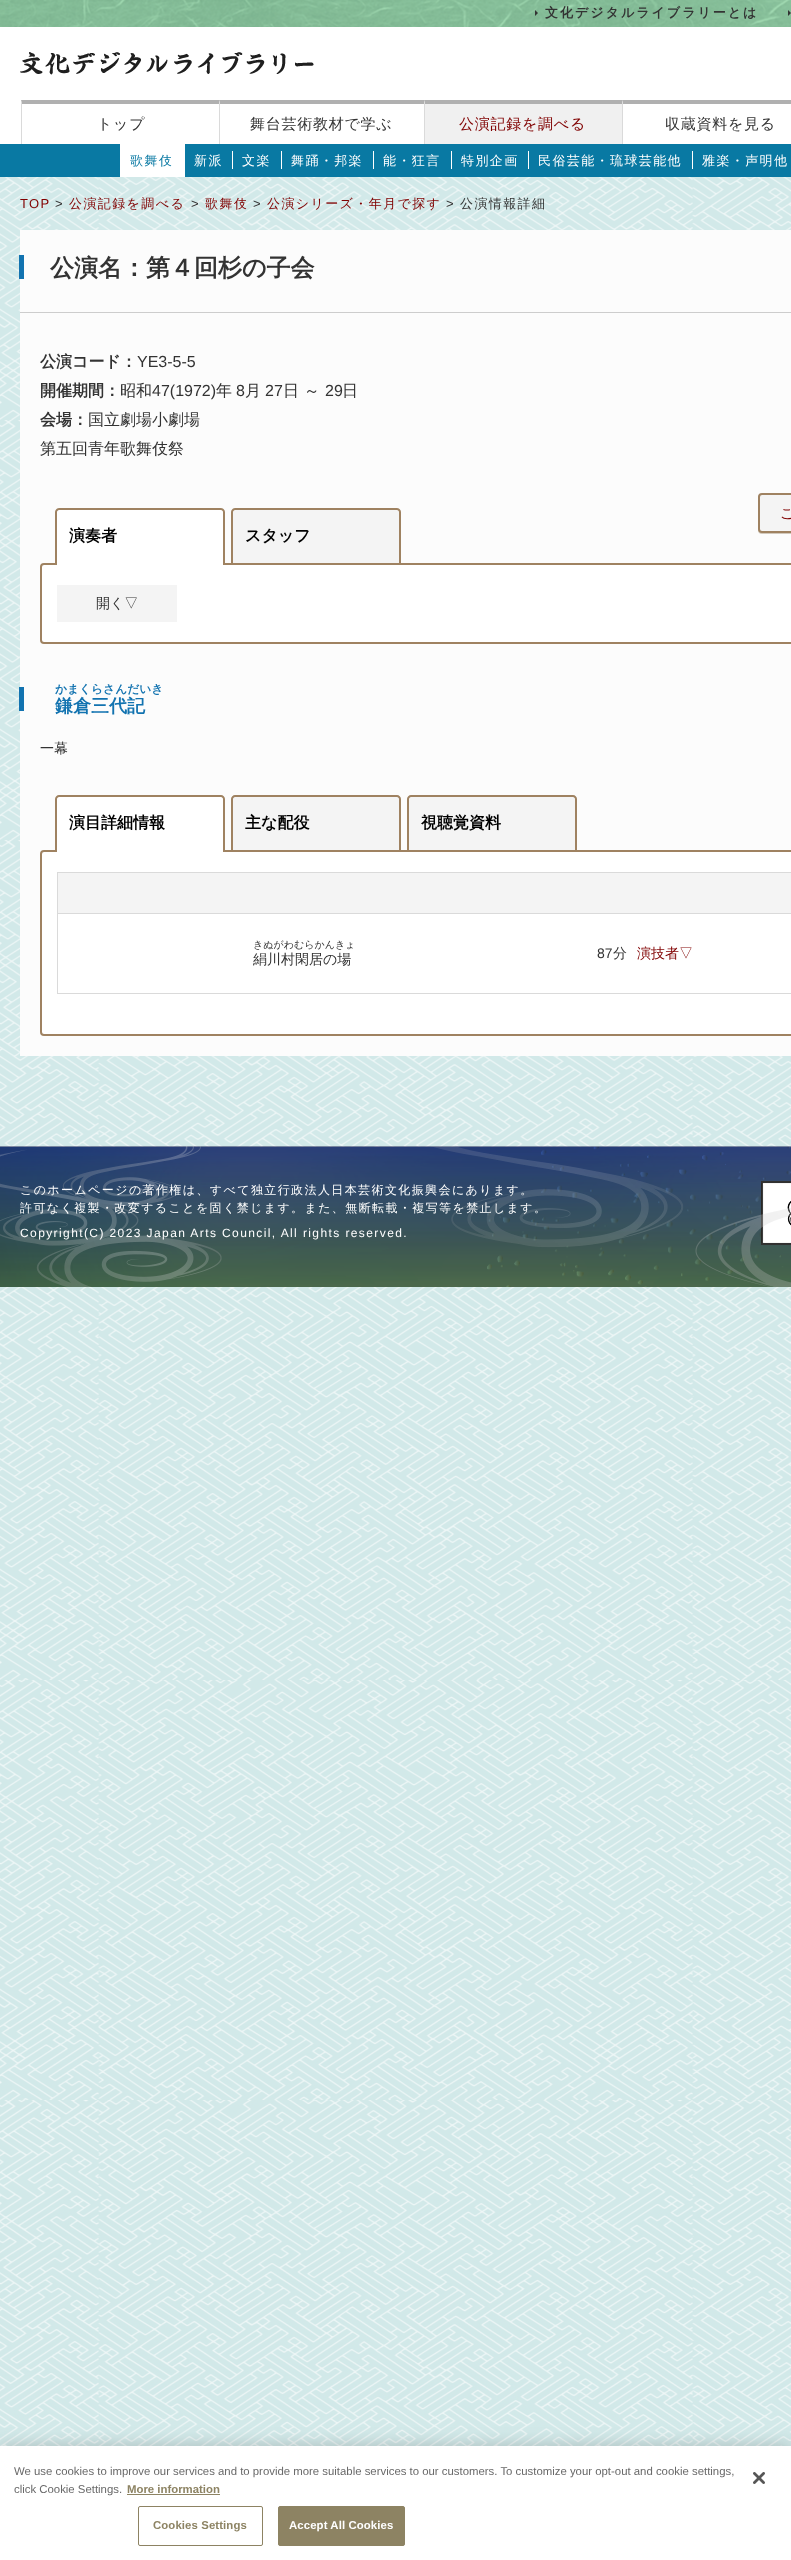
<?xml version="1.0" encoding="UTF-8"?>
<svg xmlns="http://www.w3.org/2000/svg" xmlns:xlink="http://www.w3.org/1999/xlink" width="791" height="2560">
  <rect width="100%" height="100%" fill="#ffffff" />
  <image x="0" y="177" width="791" height="2269" xlink:href="image1.png" />
  <image x="0" y="0" width="791" height="27" xlink:href="image2.png" />
  <path d="M 535 16 v -6 l 3 3 z" fill="#333333" />
  <path d="M 788 16 v -6 l 3 3 z" fill="#333333" />
  <image x="20" y="52" width="294" height="23" xlink:href="image3.png" />
  <path d="M 21 100 h 198 v 4 h -197 z" fill="#b0b0b0" />
  <path d="M 21 144 v -44 l 1 4 v 40 z" fill="#dadada" />
  <path d="M 219 100 h 205 v 4 h -204 z" fill="#b0b0b0" />
  <path d="M 219 144 v -44 l 1 4 v 40 z" fill="#dadada" />
  <path d="M 424 100 h 198 v 4 h -197 z" fill="#b0b0b0" />
  <path d="M 424 144 v -44 l 1 4 v 40 z" fill="#dadada" />
  <rect x="425" y="104" width="197" height="40" fill="#f0f0f0" />
  <path d="M 622 100 h 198 v 4 h -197 z" fill="#b0b0b0" />
  <path d="M 622 144 v -44 l 1 4 v 40 z" fill="#dadada" />
  <rect y="144" width="791" height="33" fill="#0979a3" />
  <rect x="120" y="144" width="65" height="33" fill="#ffffff" />
  <rect x="232" y="151" width="1" height="18" fill="#ffffff" />
  <rect x="281" y="151" width="1" height="18" fill="#ffffff" />
  <rect x="373" y="151" width="1" height="18" fill="#ffffff" />
  <rect x="451" y="151" width="1" height="18" fill="#ffffff" />
  <rect x="528" y="151" width="1" height="18" fill="#ffffff" />
  <rect x="692" y="151" width="1" height="18" fill="#ffffff" />
  <rect x="20" y="230" width="771" height="826" fill="#fcfcfc" />
  <rect x="20" y="312" width="771" height="1" fill="#cdcdcd" />
  <rect x="19" y="255" width="5" height="24" fill="#1273b0" />
  <rect x="758" y="494" width="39" height="40" rx="4" fill="#d2c9bc" filter="blur(0.5px)" />
  <rect x="759" y="494" width="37" height="38" rx="3" fill="#f4f4f4" stroke="#9f8261" stroke-width="2" />
  <path d="M 59 508 h 162 c 2 0 4 2 4 4 v 51 h -170 v -51 c 0 -2 2 -4 4 -4 z" fill="#ffffff" />
  <path d="M 59 508 h 162 c 2 0 4 2 4 4 v 51 h -170 v -51 c 0 -2 2 -4 4 -4 z m 0 2 h 162 c 1 0 2 1 2 2 v 51 h -166 v -51 c 0 -1 1 -2 2 -2 z" fill="#9f8261" fill-rule="evenodd" />
  <rect x="41" y="564" width="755" height="79" rx="3" fill="#ffffff" stroke="#9f8261" stroke-width="2" />
  <rect x="57" y="563" width="166" height="2" fill="#ffffff" />
  <path d="M 235 508 h 162 c 2 0 4 2 4 4 v 51 h -170 v -51 c 0 -2 2 -4 4 -4 z" fill="#f4f4f4" />
  <path d="M 235 508 h 162 c 2 0 4 2 4 4 v 51 h -170 v -51 c 0 -2 2 -4 4 -4 z m 0 2 h 162 c 1 0 2 1 2 2 v 51 h -166 v -51 c 0 -1 1 -2 2 -2 z" fill="#9f8261" fill-rule="evenodd" />
  <rect x="57" y="585" width="120" height="37" fill="#f4f4f4" />
  <rect x="19" y="687" width="5" height="24" fill="#1273b0" />
  <path d="M 59 795 h 162 c 2 0 4 2 4 4 v 51 h -170 v -51 c 0 -2 2 -4 4 -4 z" fill="#ffffff" />
  <path d="M 59 795 h 162 c 2 0 4 2 4 4 v 51 h -170 v -51 c 0 -2 2 -4 4 -4 z m 0 2 h 162 c 1 0 2 1 2 2 v 51 h -166 v -51 c 0 -1 1 -2 2 -2 z" fill="#9f8261" fill-rule="evenodd" />
  <rect x="41" y="851" width="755" height="184" rx="3" fill="#ffffff" stroke="#9f8261" stroke-width="2" />
  <rect x="57" y="850" width="166" height="2" fill="#ffffff" />
  <path d="M 235 795 h 162 c 2 0 4 2 4 4 v 51 h -170 v -51 c 0 -2 2 -4 4 -4 z" fill="#f4f4f4" />
  <path d="M 235 795 h 162 c 2 0 4 2 4 4 v 51 h -170 v -51 c 0 -2 2 -4 4 -4 z m 0 2 h 162 c 1 0 2 1 2 2 v 51 h -166 v -51 c 0 -1 1 -2 2 -2 z" fill="#9f8261" fill-rule="evenodd" />
  <path d="M 411 795 h 162 c 2 0 4 2 4 4 v 51 h -170 v -51 c 0 -2 2 -4 4 -4 z" fill="#f4f4f4" />
  <path d="M 411 795 h 162 c 2 0 4 2 4 4 v 51 h -170 v -51 c 0 -2 2 -4 4 -4 z m 0 2 h 162 c 1 0 2 1 2 2 v 51 h -166 v -51 c 0 -1 1 -2 2 -2 z" fill="#9f8261" fill-rule="evenodd" />
  <rect x="57.5" y="872.5" width="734" height="41" fill="#f4f4f4" stroke="#dadada" />
  <rect x="57" y="993" width="734" height="1" fill="#dadada" />
  <rect x="57" y="914" width="1" height="80" fill="#dadada" />
  <image x="0" y="1146" width="791" height="141" xlink:href="image4.png" />
  <image x="0" y="1146" width="222" height="141" xlink:href="image5.png" />
  <image x="761" y="1181" width="30" height="64" xlink:href="image7.png" />
  <rect y="2446" width="791" height="114" fill="#000000" fill-opacity="0.2" filter="blur(9px)" />
  <rect y="2446" width="791" height="114" fill="#ffffff" />
  <rect x="127" y="2494" width="93" height="1" fill="#8d8363" />
  <rect x="138.5" y="2506.5" width="124" height="39" rx="1.5" fill="none" stroke="#8d8363" />
  <rect x="278.5" y="2506.5" width="126" height="39" rx="1.5" fill="#8d8363" stroke="#8d8363" />
  <image x="753" y="2472" width="12" height="12" xlink:href="image8.png" />
  <text x="545" y="17" style="font-family: WenQuanYi Zen Hei; font-size: 13px; font-weight: bold; letter-spacing: 2px; fill: #333333">文化デジタルライブラリーとは</text>
  <text x="97" y="129" style="font-family: WenQuanYi Zen Hei; font-size: 15px; font-weight: 500; letter-spacing: 0.75px; fill: #333333">トップ</text>
  <text x="250" y="129" style="font-family: WenQuanYi Zen Hei; font-size: 15px; font-weight: 500; letter-spacing: 0.75px; fill: #333333">舞台芸術教材で学ぶ</text>
  <text x="459" y="129" style="font-family: WenQuanYi Zen Hei; font-size: 15px; font-weight: 500; letter-spacing: 0.75px; fill: #800000">公演記録を調べる</text>
  <text x="665" y="129" style="font-family: WenQuanYi Zen Hei; font-size: 15px; font-weight: 500; letter-spacing: 0.75px; fill: #333333">収蔵資料を見る</text>
  <text x="130" y="165" style="font-family: WenQuanYi Zen Hei; font-size: 13px; font-weight: 500; letter-spacing: 1.4px; fill: #0979a3">歌舞伎</text>
  <text x="194" y="165" style="font-family: WenQuanYi Zen Hei; font-size: 13px; font-weight: 500; letter-spacing: 1.4px; fill: #ffffff">新派</text>
  <text x="242" y="165" style="font-family: WenQuanYi Zen Hei; font-size: 13px; font-weight: 500; letter-spacing: 1.4px; fill: #ffffff">文楽</text>
  <text x="291" y="165" style="font-family: WenQuanYi Zen Hei; font-size: 13px; font-weight: 500; letter-spacing: 1.4px; fill: #ffffff">舞踊・邦楽</text>
  <text x="383" y="165" style="font-family: WenQuanYi Zen Hei; font-size: 13px; font-weight: 500; letter-spacing: 1.4px; fill: #ffffff">能・狂言</text>
  <text x="461" y="165" style="font-family: WenQuanYi Zen Hei; font-size: 13px; font-weight: 500; letter-spacing: 1.4px; fill: #ffffff">特別企画</text>
  <text x="538" y="165" style="font-family: WenQuanYi Zen Hei; font-size: 13px; font-weight: 500; letter-spacing: 1.4px; fill: #ffffff">民俗芸能・琉球芸能他</text>
  <text x="702" y="165" style="font-family: WenQuanYi Zen Hei; font-size: 13px; font-weight: 500; letter-spacing: 1.4px; fill: #ffffff">雅楽・声明他</text>
  <text x="20" y="208" style="font-family: Liberation Sans; font-size: 13px; letter-spacing: 1.4px; fill: #800000">TOP</text>
  <text x="55" y="208" style="font-family: Liberation Sans; font-size: 13px; letter-spacing: 1.4px; fill: #333333">&gt;</text>
  <text x="69" y="208" style="font-family: WenQuanYi Zen Hei; font-size: 13px; font-weight: 500; letter-spacing: 1.4px; fill: #800000">公演記録を調べる</text>
  <text x="191" y="208" style="font-family: Liberation Sans; font-size: 13px; letter-spacing: 1.4px; fill: #333333">&gt;</text>
  <text x="205" y="208" style="font-family: WenQuanYi Zen Hei; font-size: 13px; font-weight: 500; letter-spacing: 1.4px; fill: #800000">歌舞伎</text>
  <text x="253" y="208" style="font-family: Liberation Sans; font-size: 13px; letter-spacing: 1.4px; fill: #333333">&gt;</text>
  <text x="267" y="208" style="font-family: WenQuanYi Zen Hei; font-size: 13px; font-weight: 500; letter-spacing: 1.4px; fill: #800000">公演シリーズ・年月で探す</text>
  <text x="446" y="208" style="font-family: Liberation Sans; font-size: 13px; letter-spacing: 1.4px; fill: #333333">&gt;</text>
  <text x="460" y="208" style="font-family: WenQuanYi Zen Hei; font-size: 13px; font-weight: 500; letter-spacing: 1.4px; fill: #333333">公演情報詳細</text>
  <text x="50" y="276" style="font-family: WenQuanYi Zen Hei; font-size: 24px; font-weight: bold; fill: #333333">公演名：第４回杉の子会</text>
  <text x="40" y="367" style="font-family: WenQuanYi Zen Hei; font-size: 16px; font-weight: bold; fill: #333333">公演コード：</text>
  <text x="137" y="367" style="font-family: Liberation Sans; font-size: 16px; fill: #333333">YE3-5-5</text>
  <text x="40" y="396" style="font-family: WenQuanYi Zen Hei; font-size: 16px; font-weight: bold; fill: #333333">開催期間：</text>
  <text x="120" y="396" style="font-family: WenQuanYi Zen Hei; font-size: 16px; font-weight: 500; fill: #333333">昭和</text>
  <text x="152" y="396" style="font-family: Liberation Sans; font-size: 16px; fill: #333333">47(1972)</text>
  <text x="216" y="396" style="font-family: WenQuanYi Zen Hei; font-size: 16px; font-weight: 500; fill: #333333">年</text>
  <text x="236" y="396" style="font-family: Liberation Sans; font-size: 16px; fill: #333333">8</text>
  <text x="245" y="396" style="font-family: WenQuanYi Zen Hei; font-size: 16px; font-weight: 500; fill: #333333">月</text>
  <text x="265" y="396" style="font-family: Liberation Sans; font-size: 16px; fill: #333333">27</text>
  <text x="283" y="396" style="font-family: WenQuanYi Zen Hei; font-size: 16px; font-weight: 500; fill: #333333">日 ～</text>
  <text x="325" y="396" style="font-family: Liberation Sans; font-size: 16px; fill: #333333">29</text>
  <text x="342" y="396" style="font-family: WenQuanYi Zen Hei; font-size: 16px; font-weight: 500; fill: #333333">日</text>
  <text x="40" y="425" style="font-family: WenQuanYi Zen Hei; font-size: 16px; font-weight: bold; fill: #333333">会場：</text>
  <text x="88" y="425" style="font-family: WenQuanYi Zen Hei; font-size: 16px; font-weight: 500; fill: #333333">国立劇場小劇場</text>
  <text x="40" y="454" style="font-family: WenQuanYi Zen Hei; font-size: 16px; font-weight: 500; fill: #333333">第五回青年歌舞伎祭</text>
  <text x="780" y="518" style="font-family: WenQuanYi Zen Hei; font-size: 14px; font-weight: 500; fill: #800000">こ</text>
  <text x="69" y="541" style="font-family: WenQuanYi Zen Hei; font-size: 16px; font-weight: bold; fill: #000000">演奏者</text>
  <text x="245" y="541" style="font-family: WenQuanYi Zen Hei; font-size: 16px; font-weight: bold; fill: #000000">スタッフ</text>
  <text x="96" y="608" style="font-family: WenQuanYi Zen Hei; font-size: 14px; font-weight: 500; fill: #333333">開く▽</text>
  <text x="55" y="693" style="font-family: WenQuanYi Zen Hei; font-size: 11.75px; font-weight: bold; fill: #1273b0">かまくらさんだいき</text>
  <text x="55" y="712" style="font-family: WenQuanYi Zen Hei; font-size: 18px; font-weight: bold; fill: #1273b0">鎌倉三代記</text>
  <text x="40" y="753" style="font-family: WenQuanYi Zen Hei; font-size: 14px; font-weight: 500; fill: #333333">一幕</text>
  <text x="69" y="828" style="font-family: WenQuanYi Zen Hei; font-size: 16px; font-weight: bold; fill: #000000">演目詳細情報</text>
  <text x="245" y="828" style="font-family: WenQuanYi Zen Hei; font-size: 16px; font-weight: bold; fill: #000000">主な配役</text>
  <text x="421" y="828" style="font-family: WenQuanYi Zen Hei; font-size: 16px; font-weight: bold; fill: #000000">視聴覚資料</text>
  <text x="253" y="948" style="font-family: WenQuanYi Zen Hei; font-size: 10px; font-weight: 500; fill: #333333">きぬがわむらかんきょ</text>
  <text x="253" y="964" style="font-family: WenQuanYi Zen Hei; font-size: 14px; font-weight: 500; fill: #333333">絹川村閑居の場</text>
  <text x="597" y="958" style="font-family: Liberation Sans; font-size: 14px; fill: #333333">87</text>
  <text x="613" y="958" style="font-family: WenQuanYi Zen Hei; font-size: 14px; font-weight: 500; fill: #333333">分</text>
  <text x="637" y="958" style="font-family: WenQuanYi Zen Hei; font-size: 14px; font-weight: 500; fill: #800000">演技者▽</text>
  <text x="20" y="1194" style="font-family: WenQuanYi Zen Hei; font-size: 12px; font-weight: 500; letter-spacing: 1.4px; fill: #ffffff">このホームページの著作権は、すべて独立行政法人日本芸術文化振興会にあります。</text>
  <text x="20" y="1212" style="font-family: WenQuanYi Zen Hei; font-size: 12px; font-weight: 500; letter-spacing: 1.4px; fill: #ffffff">許可なく複製・改変することを固く禁じます。また、無断転載・複写等を禁止します。</text>
  <image x="431" y="1146" width="360" height="141" xlink:href="image6.png" />
  <text x="20" y="1237" style="font-family: Liberation Sans; font-size: 12px; letter-spacing: 1.4px; fill: #ffffff">Copyright(C) 2023 Japan Arts Council, All rights reserved.</text>
  <text x="14" y="2475" style="font-family: Liberation Sans; font-size: 11.38px; fill: #696969">We use cookies to improve our services and to provide more suitable services to our customers. To customize your opt-out and cookie settings,</text>
  <text x="14" y="2493" style="font-family: Liberation Sans; font-size: 11.38px; fill: #696969">click Cookie Settings.</text>
  <text x="127" y="2493" style="font-family: Liberation Sans; font-size: 11.38px; font-weight: bold; fill: #8d8363">More information</text>
  <text x="153" y="2529" style="font-family: Liberation Sans; font-size: 11.38px; font-weight: bold; letter-spacing: 0.1px; fill: #8d8363">Cookies Settings</text>
  <text x="289" y="2529" style="font-family: Liberation Sans; font-size: 11.38px; font-weight: bold; letter-spacing: 0.1px; fill: #ffffff">Accept All Cookies</text>
</svg>
